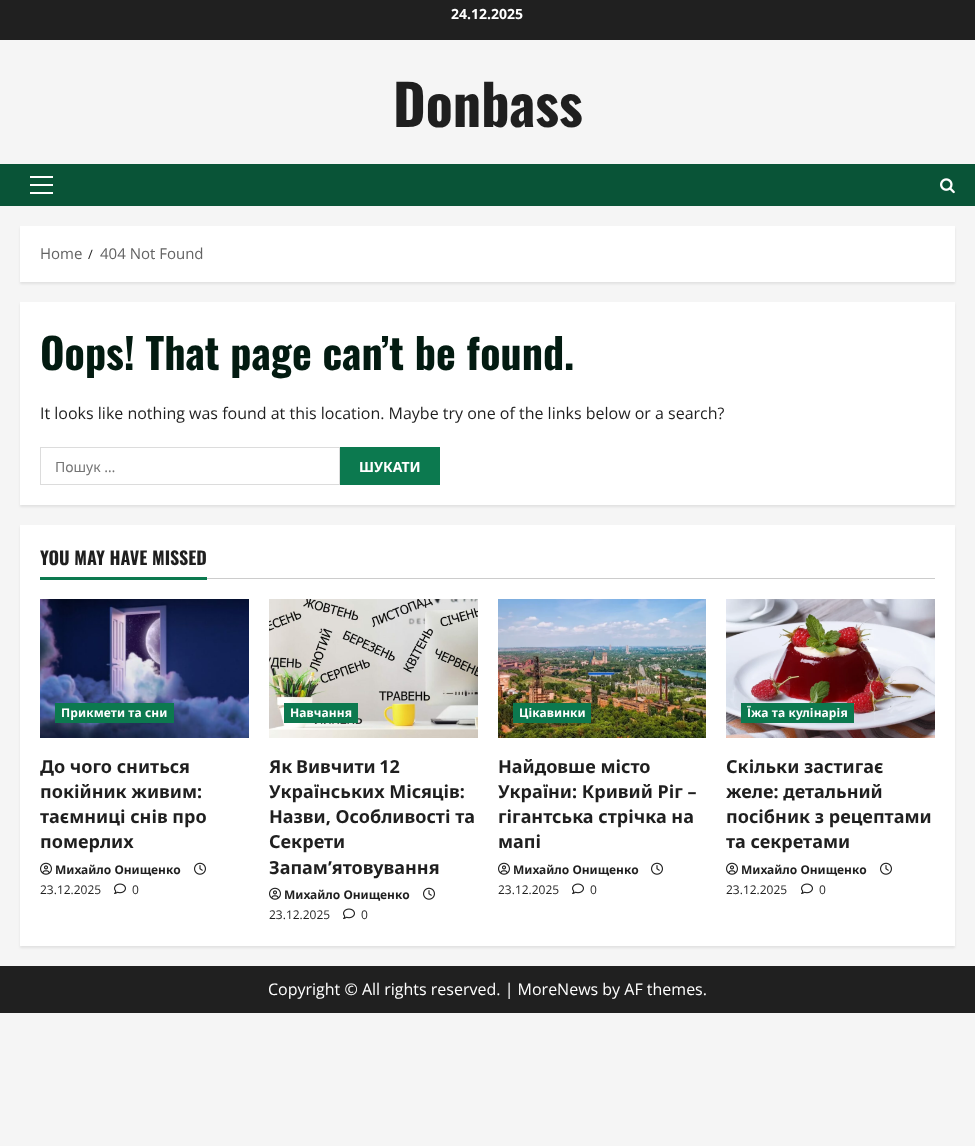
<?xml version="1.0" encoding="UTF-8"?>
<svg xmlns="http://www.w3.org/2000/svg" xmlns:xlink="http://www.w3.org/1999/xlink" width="975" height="1146">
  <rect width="100%" height="100%" fill="#f5f5f5" />
  <rect width="975" height="40" fill="#202020" />
  <rect y="164" width="975" height="42" fill="#095437" />
  <rect x="30" y="184" width="23" height="2" fill="#ffffff" />
  <rect x="30" y="176" width="23" height="2" fill="#ffffff" />
  <rect x="30" y="192" width="23" height="2" fill="#ffffff" />
  <image x="940" y="178" width="15" height="16" xlink:href="image1.png" />
  <rect x="20" y="228" width="935" height="56" fill="#000000" fill-opacity="0.08" filter="blur(1px)" />
  <rect x="20" y="226" width="935" height="56" fill="#ffffff" />
  <rect x="20" y="304" width="935" height="203" fill="#000000" fill-opacity="0.08" filter="blur(1px)" />
  <rect x="20" y="302" width="935" height="203" fill="#ffffff" />
  <rect x="40.5" y="447.5" width="299" height="37" fill="none" stroke="#dcdcdc" />
  <rect x="340" y="447" width="100" height="38" fill="#0c794f" />
  <rect x="20" y="527" width="935" height="421" fill="#000000" fill-opacity="0.08" filter="blur(1px)" />
  <rect x="20" y="525" width="935" height="421" fill="#ffffff" />
  <rect x="207" y="578" width="728" height="1" fill="#cccccc" />
  <rect x="40" y="577" width="167" height="3" fill="#0c794f" />
  <image x="40" y="599" width="209" height="139" xlink:href="image2.png" />
  <rect x="55" y="703" width="119" height="20" fill="#0c794f" />
  <image x="40" y="862" width="12" height="13" xlink:href="image3.png" />
  <image x="194" y="862" width="12" height="13" xlink:href="image4.png" />
  <image x="114" y="883" width="12" height="11" xlink:href="image5.png" />
  <image x="269" y="599" width="209" height="139" xlink:href="image6.png" />
  <rect x="284" y="703" width="74" height="20" fill="#0c794f" />
  <image x="269" y="887" width="12" height="13" xlink:href="image3.png" />
  <image x="423" y="887" width="12" height="13" xlink:href="image4.png" />
  <image x="343" y="908" width="12" height="11" xlink:href="image5.png" />
  <image x="498" y="599" width="208" height="139" xlink:href="image7.png" />
  <rect x="513" y="703" width="78" height="20" fill="#0c794f" />
  <image x="498" y="862" width="12" height="13" xlink:href="image3.png" />
  <image x="651" y="862" width="12" height="13" xlink:href="image4.png" />
  <image x="572" y="883" width="12" height="11" xlink:href="image5.png" />
  <image x="726" y="599" width="209" height="139" xlink:href="image8.png" />
  <rect x="741" y="703" width="113" height="20" fill="#0c794f" />
  <image x="726" y="862" width="12" height="13" xlink:href="image3.png" />
  <image x="880" y="862" width="12" height="13" xlink:href="image4.png" />
  <image x="801" y="883" width="12" height="11" xlink:href="image5.png" />
  <rect y="966" width="975" height="47" fill="#202020" />
  <text x="451" y="19" style="font-family: Open Sans; font-size: 14px; font-weight: bold; fill: #ffffff">24.12.2025</text>
  <text x="393" y="127" style="font-family: Oswald; font-size: 56px; font-weight: bold; fill: #1f1f1f">Donbass</text>
  <text x="40" y="259" style="font-family: Open Sans; font-size: 15px; fill: #626262">Home</text>
  <text x="88" y="259" style="font-family: Open Sans; font-size: 13px; fill: #1f1f1f">/</text>
  <text x="100" y="259" style="font-family: Open Sans; font-size: 15px; fill: #626262">404 Not Found</text>
  <text x="40" y="370" style="font-family: Oswald; font-size: 42px; font-weight: bold; fill: #031b11">Oops! That page can’t be found.</text>
  <text x="40" y="419" style="font-family: Open Sans; font-size: 16px; fill: #1f1f1f">It looks like nothing was found at this location. Maybe try one of the links below or a search?</text>
  <text x="55" y="472" style="font-family: Noto Sans; font-size: 14px; fill: #757575">Пошук …</text>
  <text x="359" y="472" style="font-family: Noto Sans; font-size: 14px; font-weight: bold; fill: #ffffff">ШУКАТИ</text>
  <text x="40" y="565" style="font-family: Oswald; font-size: 18px; font-weight: bold; fill: #1f1f1f">YOU MAY HAVE MISSED</text>
  <text x="61" y="717" style="font-family: Noto Sans; font-size: 12px; font-weight: bold; letter-spacing: 0.1px; fill: #ffffff">Прикмети та сни</text>
  <text x="40" y="773" style="font-family: Noto Sans; font-size: 18px; font-weight: bold; fill: #1f1f1f">До чого сниться</text>
  <text x="40" y="798" style="font-family: Noto Sans; font-size: 18px; font-weight: bold; fill: #1f1f1f">покійник живим:</text>
  <text x="40" y="823" style="font-family: Noto Sans; font-size: 18px; font-weight: bold; fill: #1f1f1f">таємниці снів про</text>
  <text x="40" y="848" style="font-family: Noto Sans; font-size: 18px; font-weight: bold; fill: #1f1f1f">померлих</text>
  <text x="55" y="874" style="font-family: Noto Sans; font-size: 12px; font-weight: bold; fill: #1f1f1f">Михайло Онищенко</text>
  <text x="40" y="894" style="font-family: Open Sans; font-size: 12px; fill: #1f1f1f">23.12.2025</text>
  <text x="132" y="894" style="font-family: Open Sans; font-size: 12px; fill: #1f1f1f">0</text>
  <text x="290" y="717" style="font-family: Noto Sans; font-size: 12px; font-weight: bold; letter-spacing: 0.1px; fill: #ffffff">Навчання</text>
  <text x="269" y="773" word-spacing="-1" style="font-family: Noto Sans; font-size: 18px; font-weight: bold; fill: #1f1f1f">Як Вивчити 12</text>
  <text x="269" y="798" style="font-family: Noto Sans; font-size: 18px; font-weight: bold; fill: #1f1f1f">Українських Місяців:</text>
  <text x="269" y="823" style="font-family: Noto Sans; font-size: 18px; font-weight: bold; fill: #1f1f1f">Назви, Особливості та</text>
  <text x="269" y="848" style="font-family: Noto Sans; font-size: 18px; font-weight: bold; fill: #1f1f1f">Секрети</text>
  <text x="269" y="874" style="font-family: Noto Sans; font-size: 18px; font-weight: bold; fill: #1f1f1f">Запам’ятовування</text>
  <text x="284" y="899" style="font-family: Noto Sans; font-size: 12px; font-weight: bold; fill: #1f1f1f">Михайло Онищенко</text>
  <text x="269" y="919" style="font-family: Open Sans; font-size: 12px; fill: #1f1f1f">23.12.2025</text>
  <text x="361" y="919" style="font-family: Open Sans; font-size: 12px; fill: #1f1f1f">0</text>
  <text x="519" y="717" style="font-family: Noto Sans; font-size: 12px; font-weight: bold; letter-spacing: 0.1px; fill: #ffffff">Цікавинки</text>
  <text x="498" y="773" style="font-family: Noto Sans; font-size: 18px; font-weight: bold; fill: #1f1f1f">Найдовше місто</text>
  <text x="498" y="798" style="font-family: Noto Sans; font-size: 18px; font-weight: bold; fill: #1f1f1f">України: Кривий Ріг –</text>
  <text x="498" y="823" style="font-family: Noto Sans; font-size: 18px; font-weight: bold; fill: #1f1f1f">гігантська стрічка на</text>
  <text x="498" y="848" style="font-family: Noto Sans; font-size: 18px; font-weight: bold; fill: #1f1f1f">мапі</text>
  <text x="513" y="874" style="font-family: Noto Sans; font-size: 12px; font-weight: bold; fill: #1f1f1f">Михайло Онищенко</text>
  <text x="498" y="894" style="font-family: Open Sans; font-size: 12px; fill: #1f1f1f">23.12.2025</text>
  <text x="590" y="894" style="font-family: Open Sans; font-size: 12px; fill: #1f1f1f">0</text>
  <text x="747" y="717" style="font-family: Noto Sans; font-size: 12px; font-weight: bold; letter-spacing: 0.1px; fill: #ffffff">Їжа та кулінарія</text>
  <text x="726" y="773" style="font-family: Noto Sans; font-size: 18px; font-weight: bold; fill: #1f1f1f">Скільки застигає</text>
  <text x="726" y="798" style="font-family: Noto Sans; font-size: 18px; font-weight: bold; fill: #1f1f1f">желе: детальний</text>
  <text x="726" y="823" style="font-family: Noto Sans; font-size: 18px; font-weight: bold; fill: #1f1f1f">посібник з рецептами</text>
  <text x="726" y="848" style="font-family: Noto Sans; font-size: 18px; font-weight: bold; fill: #1f1f1f">та секретами</text>
  <text x="741" y="874" style="font-family: Noto Sans; font-size: 12px; font-weight: bold; fill: #1f1f1f">Михайло Онищенко</text>
  <text x="726" y="894" style="font-family: Open Sans; font-size: 12px; fill: #1f1f1f">23.12.2025</text>
  <text x="819" y="894" style="font-family: Open Sans; font-size: 12px; fill: #1f1f1f">0</text>
  <text x="268" y="995" style="font-family: Open Sans; font-size: 16px; fill: #ffffff">Copyright © All rights reserved. | MoreNews by AF themes.</text>
</svg>
